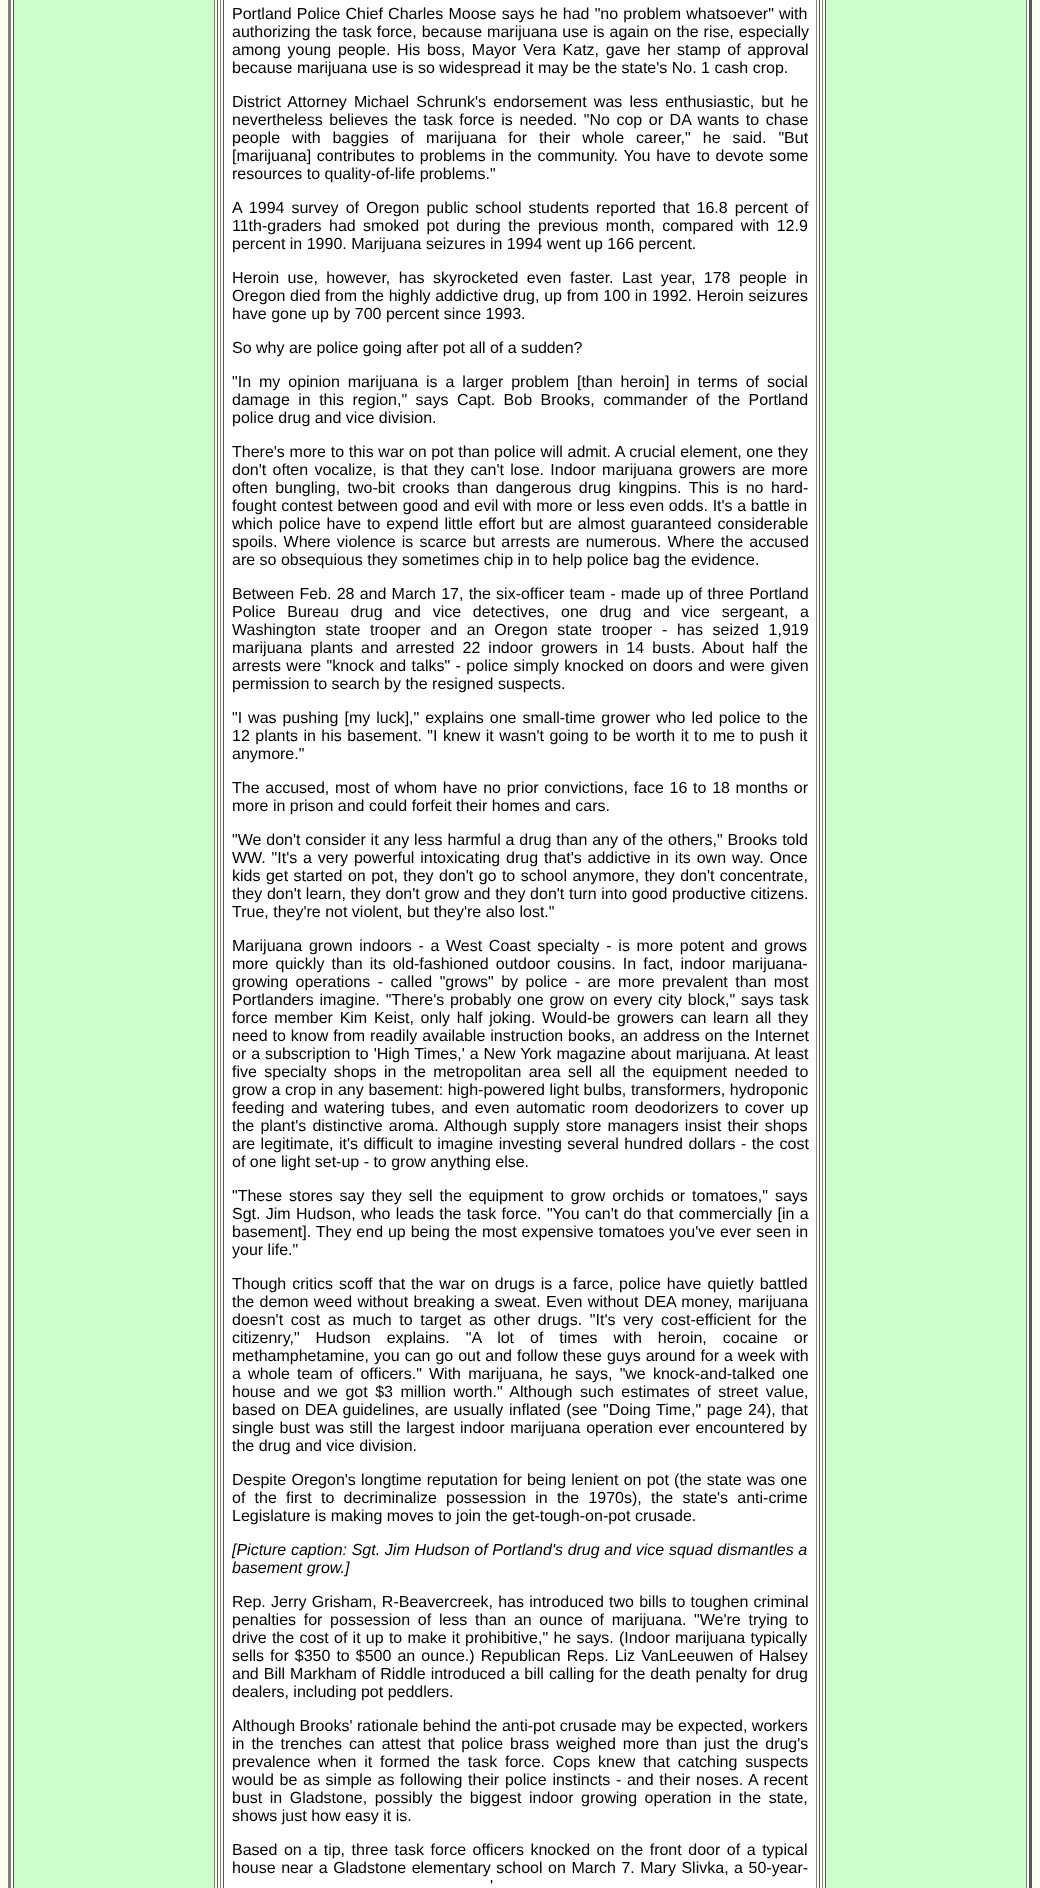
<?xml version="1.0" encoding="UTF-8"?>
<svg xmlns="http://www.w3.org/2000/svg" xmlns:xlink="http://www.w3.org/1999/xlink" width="1040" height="1888">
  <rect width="100%" height="100%" fill="#fffff2" />
  <path d="M 1032 -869 v 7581 l -3 -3 v -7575 z" fill="#555555" />
  <path d="M 8 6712 v -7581 l 3 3 v 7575 z" fill="#808080" />
  <rect x="14" width="200" height="1888" fill="#ccffcc" />
  <rect x="214" width="1" height="1888" fill="#808080" />
  <rect x="13" width="1" height="1888" fill="#555555" />
  <rect x="822" width="1" height="1888" fill="#808080" />
  <rect x="217" width="1" height="1888" fill="#555555" />
  <rect x="221" width="598" height="1888" fill="#ffffff" />
  <rect x="819" width="1" height="1888" fill="#555555" />
  <rect x="220" width="1" height="1888" fill="#808080" />
  <rect x="816" width="1" height="1888" fill="#808080" />
  <rect x="223" width="1" height="1888" fill="#555555" />
  <rect x="826" width="200" height="1888" fill="#ccffcc" />
  <rect x="1026" width="1" height="1888" fill="#808080" />
  <rect x="825" width="1" height="1888" fill="#555555" />
  <text x="232" y="19" word-spacing="0.75" style="font-family: Liberation Sans; font-size: 16px; fill: #000000">Portland Police Chief Charles Moose says he had "no problem whatsoever" with</text>
  <text x="232" y="37" word-spacing="0.5" style="font-family: Liberation Sans; font-size: 16px; fill: #000000">authorizing the task force, because marijuana use is again on the rise, especially</text>
  <text x="232" y="55" word-spacing="2.25" style="font-family: Liberation Sans; font-size: 16px; fill: #000000">among young people. His boss, Mayor Vera Katz, gave her stamp of approval</text>
  <text x="232" y="73" style="font-family: Liberation Sans; font-size: 16px; fill: #000000">because marijuana use is so widespread it may be the state's No. 1 cash crop.</text>
  <text x="232" y="107" word-spacing="2.75" style="font-family: Liberation Sans; font-size: 16px; fill: #000000">District Attorney Michael Schrunk's endorsement was less enthusiastic, but he</text>
  <text x="232" y="125" word-spacing="2.1" style="font-family: Liberation Sans; font-size: 16px; fill: #000000">nevertheless believes the task force is needed. "No cop or DA wants to chase</text>
  <text x="232" y="143" word-spacing="7.6" style="font-family: Liberation Sans; font-size: 16px; fill: #000000">people with baggies of marijuana for their whole career," he said. "But</text>
  <text x="232" y="161" word-spacing="1.25" style="font-family: Liberation Sans; font-size: 16px; fill: #000000">[marijuana] contributes to problems in the community. You have to devote some</text>
  <text x="232" y="179" style="font-family: Liberation Sans; font-size: 16px; fill: #000000">resources to quality-of-life problems."</text>
  <text x="232" y="213" word-spacing="2.6" style="font-family: Liberation Sans; font-size: 16px; fill: #000000">A 1994 survey of Oregon public school students reported that 16.8 percent of</text>
  <text x="232" y="231" word-spacing="3" style="font-family: Liberation Sans; font-size: 16px; fill: #000000">11th-graders had smoked pot during the previous month, compared with 12.9</text>
  <text x="232" y="249" style="font-family: Liberation Sans; font-size: 16px; fill: #000000">percent in 1990. Marijuana seizures in 1994 went up 166 percent.</text>
  <text x="232" y="283" word-spacing="4" style="font-family: Liberation Sans; font-size: 16px; fill: #000000">Heroin use, however, has skyrocketed even faster. Last year, 178 people in</text>
  <text x="232" y="301" word-spacing="0.25" style="font-family: Liberation Sans; font-size: 16px; fill: #000000">Oregon died from the highly addictive drug, up from 100 in 1992. Heroin seizures</text>
  <text x="232" y="319" style="font-family: Liberation Sans; font-size: 16px; fill: #000000">have gone up by 700 percent since 1993.</text>
  <text x="232" y="353" style="font-family: Liberation Sans; font-size: 16px; fill: #000000">So why are police going after pot all of a sudden?</text>
  <text x="232" y="387" word-spacing="3.5" style="font-family: Liberation Sans; font-size: 16px; fill: #000000">"In my opinion marijuana is a larger problem [than heroin] in terms of social</text>
  <text x="232" y="405" word-spacing="4" style="font-family: Liberation Sans; font-size: 16px; fill: #000000">damage in this region," says Capt. Bob Brooks, commander of the Portland</text>
  <text x="232" y="423" style="font-family: Liberation Sans; font-size: 16px; fill: #000000">police drug and vice division.</text>
  <text x="232" y="457" word-spacing="0.25" style="font-family: Liberation Sans; font-size: 16px; fill: #000000">There's more to this war on pot than police will admit. A crucial element, one they</text>
  <text x="232" y="475" word-spacing="1.9" style="font-family: Liberation Sans; font-size: 16px; fill: #000000">don't often vocalize, is that they can't lose. Indoor marijuana growers are more</text>
  <text x="232" y="493" word-spacing="3.1" style="font-family: Liberation Sans; font-size: 16px; fill: #000000">often bungling, two-bit crooks than dangerous drug kingpins. This is no hard-</text>
  <text x="232" y="511" word-spacing="0.25" style="font-family: Liberation Sans; font-size: 16px; fill: #000000">fought contest between good and evil with more or less even odds. It's a battle in</text>
  <text x="232" y="529" word-spacing="1.4" style="font-family: Liberation Sans; font-size: 16px; fill: #000000">which police have to expend little effort but are almost guaranteed considerable</text>
  <text x="232" y="547" word-spacing="1.75" style="font-family: Liberation Sans; font-size: 16px; fill: #000000">spoils. Where violence is scarce but arrests are numerous. Where the accused</text>
  <text x="232" y="565" style="font-family: Liberation Sans; font-size: 16px; fill: #000000">are so obsequious they sometimes chip in to help police bag the evidence.</text>
  <text x="232" y="599" word-spacing="0.75" style="font-family: Liberation Sans; font-size: 16px; fill: #000000">Between Feb. 28 and March 17, the six-officer team - made up of three Portland</text>
  <text x="232" y="617" word-spacing="7.25" style="font-family: Liberation Sans; font-size: 16px; fill: #000000">Police Bureau drug and vice detectives, one drug and vice sergeant, a</text>
  <text x="232" y="635" word-spacing="5.25" style="font-family: Liberation Sans; font-size: 16px; fill: #000000">Washington state trooper and an Oregon state trooper - has seized 1,919</text>
  <text x="232" y="653" word-spacing="3.6" style="font-family: Liberation Sans; font-size: 16px; fill: #000000">marijuana plants and arrested 22 indoor growers in 14 busts. About half the</text>
  <text x="232" y="671" word-spacing="1" style="font-family: Liberation Sans; font-size: 16px; fill: #000000">arrests were "knock and talks" - police simply knocked on doors and were given</text>
  <text x="232" y="689" style="font-family: Liberation Sans; font-size: 16px; fill: #000000">permission to search by the resigned suspects.</text>
  <text x="232" y="723" word-spacing="1.5" style="font-family: Liberation Sans; font-size: 16px; fill: #000000">"I was pushing [my luck]," explains one small-time grower who led police to the</text>
  <text x="232" y="741" word-spacing="1" style="font-family: Liberation Sans; font-size: 16px; fill: #000000">12 plants in his basement. "I knew it wasn't going to be worth it to me to push it</text>
  <text x="232" y="759" style="font-family: Liberation Sans; font-size: 16px; fill: #000000">anymore."</text>
  <text x="232" y="793" word-spacing="1.25" style="font-family: Liberation Sans; font-size: 16px; fill: #000000">The accused, most of whom have no prior convictions, face 16 to 18 months or</text>
  <text x="232" y="811" style="font-family: Liberation Sans; font-size: 16px; fill: #000000">more in prison and could forfeit their homes and cars.</text>
  <text x="232" y="845" word-spacing="0.4" style="font-family: Liberation Sans; font-size: 16px; fill: #000000">"We don't consider it any less harmful a drug than any of the others," Brooks told</text>
  <text x="232" y="863" word-spacing="1.4" style="font-family: Liberation Sans; font-size: 16px; fill: #000000">WW. "It's a very powerful intoxicating drug that's addictive in its own way. Once</text>
  <text x="232" y="881" word-spacing="1" style="font-family: Liberation Sans; font-size: 16px; fill: #000000">kids get started on pot, they don't go to school anymore, they don't concentrate,</text>
  <text x="232" y="899" word-spacing="0.25" style="font-family: Liberation Sans; font-size: 16px; fill: #000000">they don't learn, they don't grow and they don't turn into good productive citizens.</text>
  <text x="232" y="917" style="font-family: Liberation Sans; font-size: 16px; fill: #000000">True, they're not violent, but they're also lost."</text>
  <text x="232" y="951" word-spacing="2.25" style="font-family: Liberation Sans; font-size: 16px; fill: #000000">Marijuana grown indoors - a West Coast specialty - is more potent and grows</text>
  <text x="232" y="969" word-spacing="2.6" style="font-family: Liberation Sans; font-size: 16px; fill: #000000">more quickly than its old-fashioned outdoor cousins. In fact, indoor marijuana-</text>
  <text x="232" y="987" word-spacing="3" style="font-family: Liberation Sans; font-size: 16px; fill: #000000">growing operations - called "grows" by police - are more prevalent than most</text>
  <text x="232" y="1005" word-spacing="1.25" style="font-family: Liberation Sans; font-size: 16px; fill: #000000">Portlanders imagine. "There's probably one grow on every city block," says task</text>
  <text x="232" y="1023" word-spacing="2.25" style="font-family: Liberation Sans; font-size: 16px; fill: #000000">force member Kim Keist, only half joking.</text>
  <text x="542" y="1023" word-spacing="2.25" style="font-family: Liberation Sans; font-size: 16px; fill: #000000">Would-be growers can learn all they</text>
  <text x="232" y="1041" word-spacing="0.5" style="font-family: Liberation Sans; font-size: 16px; fill: #000000">need to know from readily available instruction books, an address on the Internet</text>
  <text x="232" y="1059" word-spacing="0.5" style="font-family: Liberation Sans; font-size: 16px; fill: #000000">or a subscription to 'High Times,' a New York magazine about marijuana. At least</text>
  <text x="232" y="1077" word-spacing="2.9" style="font-family: Liberation Sans; font-size: 16px; fill: #000000">five specialty shops in the metropolitan area sell all the equipment needed to</text>
  <text x="232" y="1095" word-spacing="0.25" style="font-family: Liberation Sans; font-size: 16px; fill: #000000">grow a crop in any basement: high-powered light bulbs, transformers, hydroponic</text>
  <text x="232" y="1113" word-spacing="2.1" style="font-family: Liberation Sans; font-size: 16px; fill: #000000">feeding and watering tubes, and even automatic room deodorizers to cover up</text>
  <text x="232" y="1131" word-spacing="1.75" style="font-family: Liberation Sans; font-size: 16px; fill: #000000">the plant's distinctive aroma. Although supply store managers insist their shops</text>
  <text x="232" y="1149" word-spacing="1" style="font-family: Liberation Sans; font-size: 16px; fill: #000000">are legitimate, it's difficult to imagine investing several hundred dollars - the cost</text>
  <text x="232" y="1167" style="font-family: Liberation Sans; font-size: 16px; fill: #000000">of one light set-up - to grow anything else.</text>
  <text x="232" y="1201" word-spacing="2.5" style="font-family: Liberation Sans; font-size: 16px; fill: #000000">"These stores say they sell the equipment to grow orchids or tomatoes," says</text>
  <text x="232" y="1219" word-spacing="0.9" style="font-family: Liberation Sans; font-size: 16px; fill: #000000">Sgt. Jim Hudson, who leads the task force. "You can't do that commercially [in a</text>
  <text x="232" y="1237" word-spacing="0.5" style="font-family: Liberation Sans; font-size: 16px; fill: #000000">basement]. They end up being the most expensive tomatoes you've ever seen in</text>
  <text x="232" y="1255" style="font-family: Liberation Sans; font-size: 16px; fill: #000000">your life."</text>
  <text x="232" y="1289" word-spacing="1.5" style="font-family: Liberation Sans; font-size: 16px; fill: #000000">Though critics scoff that the war on drugs is a farce, police have quietly battled</text>
  <text x="232" y="1307" word-spacing="0.9" style="font-family: Liberation Sans; font-size: 16px; fill: #000000">the demon weed without breaking a sweat. Even without DEA money, marijuana</text>
  <text x="232" y="1325" word-spacing="3.25" style="font-family: Liberation Sans; font-size: 16px; fill: #000000">doesn't cost as much to target as other drugs. "It's very cost-efficient for the</text>
  <text x="232" y="1343" word-spacing="11.5" style="font-family: Liberation Sans; font-size: 16px; fill: #000000">citizenry," Hudson explains. "A lot of times with heroin, cocaine or</text>
  <text x="232" y="1361" word-spacing="0.5" style="font-family: Liberation Sans; font-size: 16px; fill: #000000">methamphetamine, you can go out and follow these guys around for a week with</text>
  <text x="232" y="1379" word-spacing="2.75" style="font-family: Liberation Sans; font-size: 16px; fill: #000000">a whole team of officers." With marijuana, he says, "we knock-and-talked one</text>
  <text x="232" y="1397" word-spacing="3.1" style="font-family: Liberation Sans; font-size: 16px; fill: #000000">house and we got $3 million worth." Although such estimates of street value,</text>
  <text x="232" y="1415" word-spacing="1.25" style="font-family: Liberation Sans; font-size: 16px; fill: #000000">based on DEA guidelines, are usually inflated (see "Doing Time," page 24), that</text>
  <text x="232" y="1433" word-spacing="1.25" style="font-family: Liberation Sans; font-size: 16px; fill: #000000">single bust was still the largest indoor marijuana operation ever encountered by</text>
  <text x="232" y="1451" style="font-family: Liberation Sans; font-size: 16px; fill: #000000">the drug and vice division.</text>
  <text x="232" y="1485" word-spacing="0.75" style="font-family: Liberation Sans; font-size: 16px; fill: #000000">Despite Oregon's longtime reputation for being lenient on pot (the state was one</text>
  <text x="232" y="1503" word-spacing="4.75" style="font-family: Liberation Sans; font-size: 16px; fill: #000000">of the first to decriminalize possession in the 1970s), the state's anti-crime</text>
  <text x="232" y="1521" style="font-family: Liberation Sans; font-size: 16px; fill: #000000">Legislature is making moves to join the get-tough-on-pot crusade.</text>
  <text x="232" y="1555" word-spacing="0.25" style="font-family: Liberation Sans; font-size: 16px; font-style: italic; fill: #000000">[Picture caption: Sgt. Jim Hudson of Portland's drug and vice squad dismantles a</text>
  <text x="232" y="1573" style="font-family: Liberation Sans; font-size: 16px; font-style: italic; fill: #000000">basement grow.]</text>
  <text x="232" y="1607" word-spacing="0.75" style="font-family: Liberation Sans; font-size: 16px; fill: #000000">Rep. Jerry Grisham, R-Beavercreek, has introduced two bills to toughen criminal</text>
  <text x="232" y="1625" word-spacing="3.25" style="font-family: Liberation Sans; font-size: 16px; fill: #000000">penalties for possession of less than an ounce of marijuana. "We're trying to</text>
  <text x="232" y="1643" word-spacing="0.8" style="font-family: Liberation Sans; font-size: 16px; fill: #000000">drive the cost of it up to make it prohibitive," he says. (Indoor marijuana typically</text>
  <text x="232" y="1661" word-spacing="1.6" style="font-family: Liberation Sans; font-size: 16px; fill: #000000">sells for $350 to $500 an ounce.) Republican Reps. Liz VanLeeuwen of Halsey</text>
  <text x="232" y="1679" word-spacing="0.6" style="font-family: Liberation Sans; font-size: 16px; fill: #000000">and Bill Markham of Riddle introduced a bill calling for the death penalty for drug</text>
  <text x="232" y="1697" style="font-family: Liberation Sans; font-size: 16px; fill: #000000">dealers, including pot peddlers.</text>
  <text x="232" y="1731" style="font-family: Liberation Sans; font-size: 16px; fill: #000000">Although Brooks' rationale behind the anti-pot crusade may be expected, workers</text>
  <text x="232" y="1749" word-spacing="2.5" style="font-family: Liberation Sans; font-size: 16px; fill: #000000">in the trenches can attest that police brass weighed more than just the drug's</text>
  <text x="232" y="1767" word-spacing="3.4" style="font-family: Liberation Sans; font-size: 16px; fill: #000000">prevalence when it formed the task force. Cops knew that catching suspects</text>
  <text x="232" y="1785" word-spacing="1.25" style="font-family: Liberation Sans; font-size: 16px; fill: #000000">would be as simple as following their police instincts - and their noses. A recent</text>
  <text x="232" y="1803" word-spacing="3.1" style="font-family: Liberation Sans; font-size: 16px; fill: #000000">bust in Gladstone, possibly the biggest indoor growing operation in the state,</text>
  <text x="232" y="1821" style="font-family: Liberation Sans; font-size: 16px; fill: #000000">shows just how easy it is.</text>
  <text x="232" y="1855" word-spacing="2.1" style="font-family: Liberation Sans; font-size: 16px; fill: #000000">Based on a tip, three task force officers knocked on the front door of a typical</text>
  <text x="232" y="1873" word-spacing="1.1" style="font-family: Liberation Sans; font-size: 16px; fill: #000000">house near a Gladstone elementary school on March 7. Mary Slivka, a 50-year-</text>
  <text x="490" y="1891" word-spacing="3" style="font-family: Liberation Sans; font-size: 16px; fill: #000000">'</text>
</svg>
